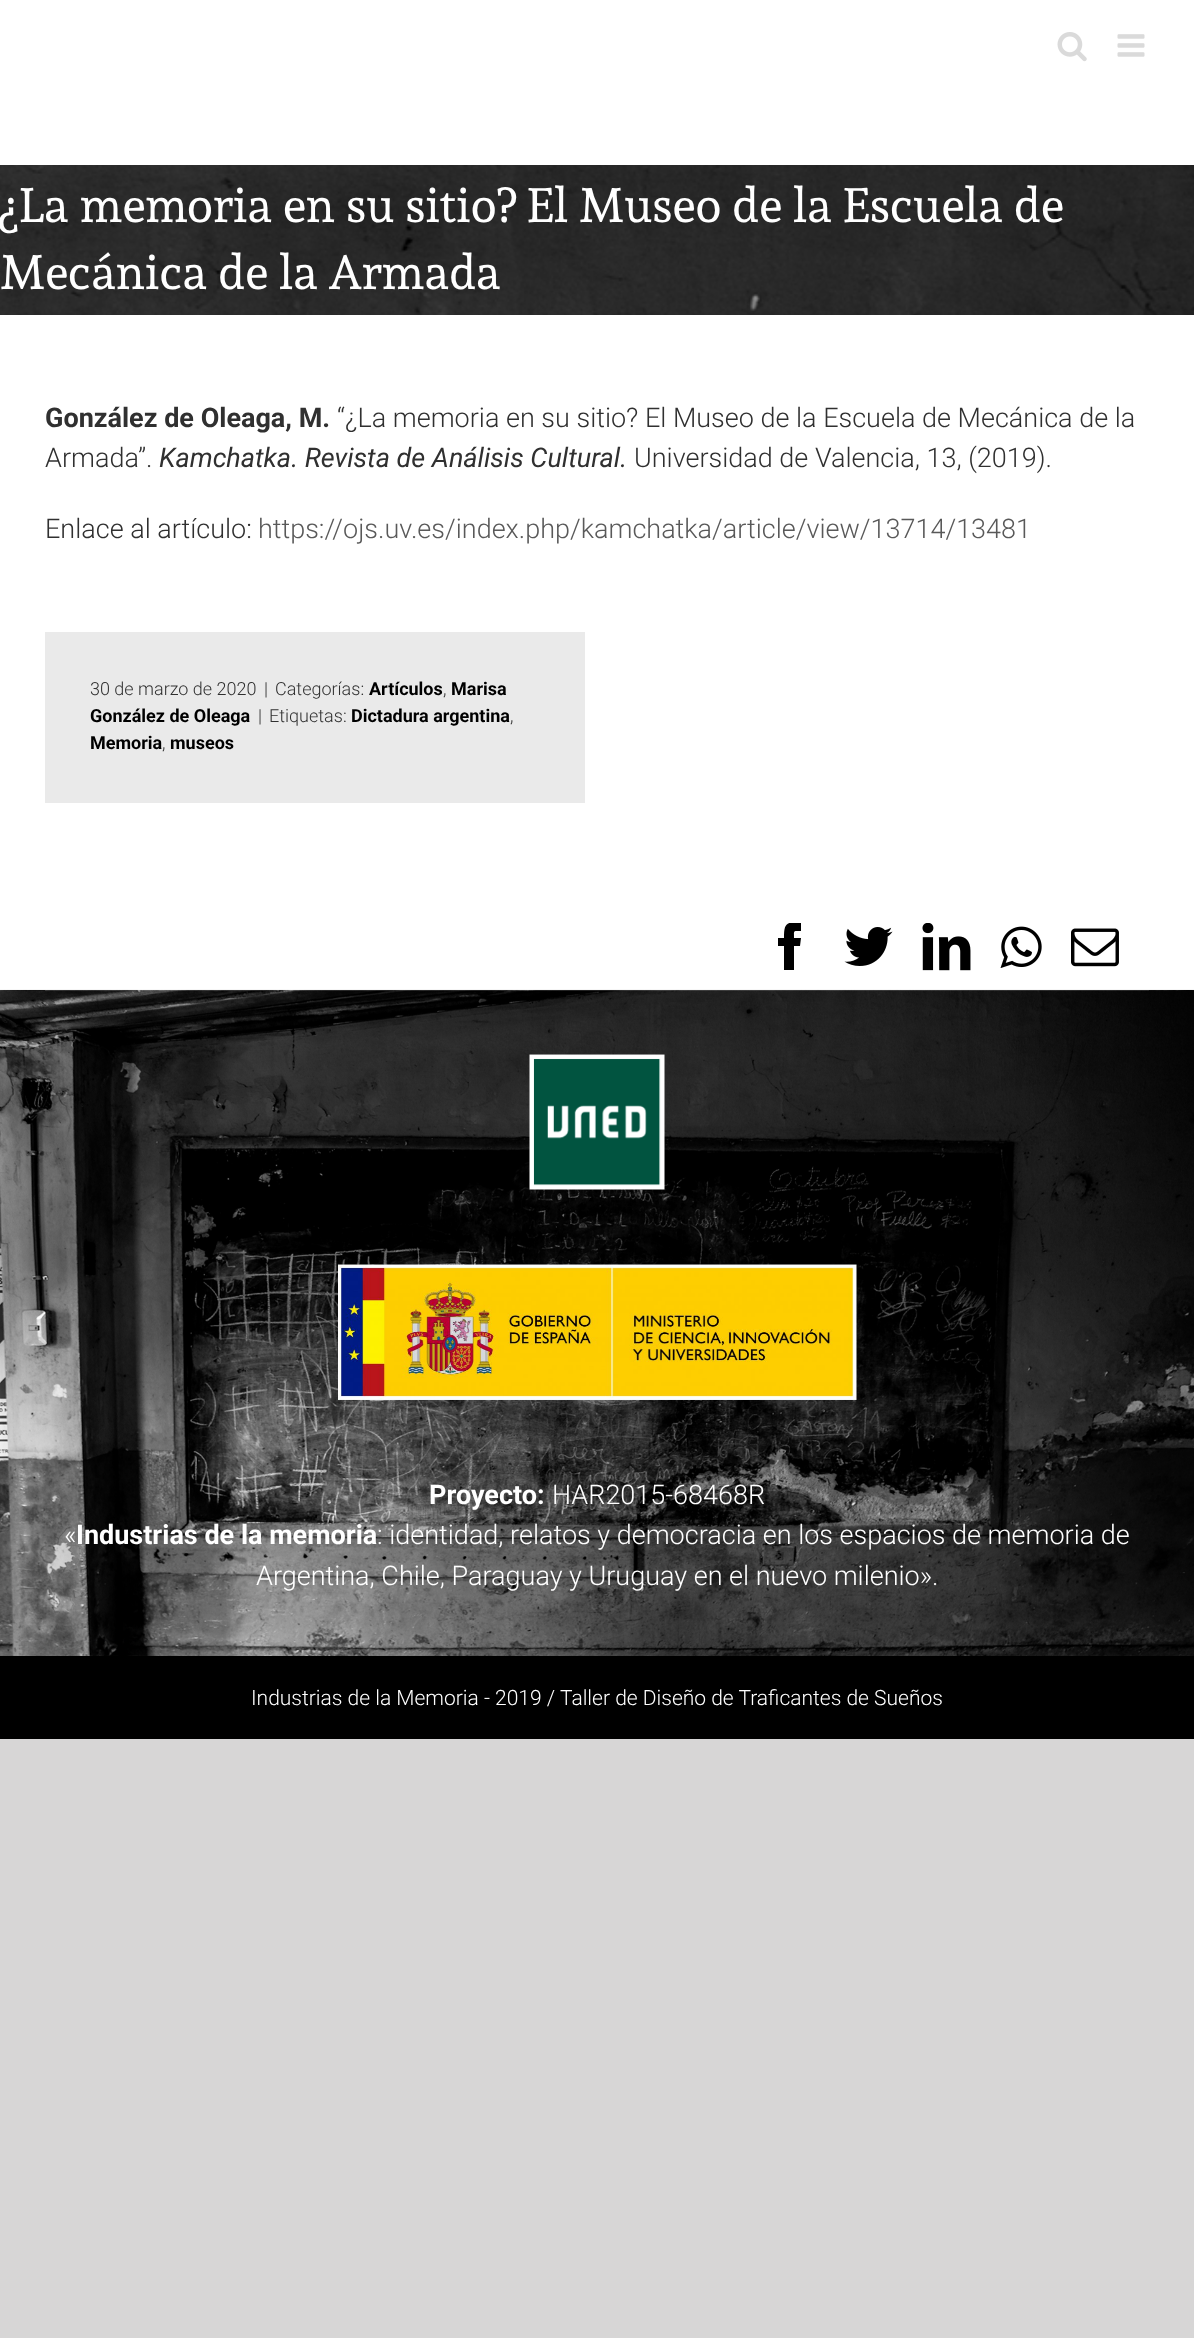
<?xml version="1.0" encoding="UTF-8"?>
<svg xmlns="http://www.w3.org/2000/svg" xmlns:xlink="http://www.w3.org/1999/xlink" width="1194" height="2338">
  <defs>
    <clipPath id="clip1"><rect x="75" y="923" width="1044" height="52" /></clipPath>
  </defs>
  <rect width="100%" height="100%" fill="#d7d6d6" />
  <image x="0" y="990" width="1194" height="666" xlink:href="image1.png" />
  <rect width="1194" height="165" fill="#ffffff" />
  <image x="1057" y="32" width="30" height="30" xlink:href="image2.png" />
  <image x="1117" y="34" width="28" height="23" xlink:href="image3.png" />
  <image x="0" y="165" width="1194" height="150" xlink:href="image4.png" />
  <rect y="315" width="1194" height="675" fill="#ffffff" />
  <rect x="45" y="632" width="540" height="171" fill="#eaeaea" />
  <rect x="45" y="990" width="1104" height="1" fill="#ffffff" />
  <g clip-path="url(#clip1)">
    <path d="M 794 970 h -10 v -24 h -6 v -8 h 6 c 0 -15 2 -16 17 -16 v 9 c -8 0 -7 -1 -7 7 h 7 l -1 8 h -6 z" fill="#000000" />
  </g>
  <image x="844" y="927" width="49" height="39" xlink:href="image5.png" />
  <image x="922" y="923" width="49" height="48" xlink:href="image6.png" />
  <image x="1000" y="926" width="42" height="42" xlink:href="image7.png" />
  <image x="1071" y="928" width="48" height="39" xlink:href="image8.png" />
  <image x="0" y="989" width="1194" height="667" xlink:href="image9.png" />
  <image x="529" y="1054" width="136" height="136" xlink:href="image10.png" />
  <image x="338" y="1264" width="519" height="136" xlink:href="image11.png" />
  <rect y="1656" width="1194" height="83" fill="#000000" />
  <text x="0" y="222" style="font-family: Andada; font-size: 48px; fill: #ffffff">¿La memoria en su sitio? El Museo de la Escuela de</text>
  <text x="0" y="289" style="font-family: Andada; font-size: 48px; fill: #ffffff">Mecánica de la Armada</text>
  <text x="45" y="427" style="font-family: Roboto; font-size: 27px; font-weight: bold; fill: #303030">González de Oleaga, M.</text>
  <text x="337" y="427" style="font-family: Roboto; font-size: 27px; font-weight: 300; fill: #303030">“¿La memoria en su sitio? El Museo de la Escuela de Mecánica de la</text>
  <text x="45" y="467" style="font-family: Roboto; font-size: 27px; font-weight: 300; fill: #303030">Armada”.</text>
  <text x="159" y="467" style="font-family: Roboto; font-size: 27px; font-style: italic; fill: #303030">Kamchatka. Revista de Análisis Cultural.</text>
  <text x="634" y="467" style="font-family: Roboto; font-size: 27px; font-weight: 300; fill: #303030">Universidad de Valencia, 13, (2019).</text>
  <text x="45" y="538" style="font-family: Roboto; font-size: 27px; font-weight: 300; fill: #303030">Enlace al artículo:</text>
  <text x="258" y="538" style="font-family: Roboto; font-size: 27px; font-weight: 300; fill: #595959">https://ojs.uv.es/index.php/kamchatka/article/view/13714/13481</text>
  <text x="90" y="695" style="font-family: Roboto; font-size: 18px; font-weight: 300; fill: #303030">30 de marzo de 2020</text>
  <text x="264" y="695" style="font-family: Roboto; font-size: 18px; font-weight: 300; fill: #303030">|</text>
  <text x="275" y="695" style="font-family: Roboto; font-size: 18px; font-weight: 300; fill: #303030">Categorías:</text>
  <text x="369" y="695" style="font-family: Roboto; font-size: 18px; font-weight: bold; fill: #000000">Artículos</text>
  <text x="443" y="695" style="font-family: Roboto; font-size: 18px; font-weight: 300; fill: #303030">,</text>
  <text x="451" y="695" style="font-family: Roboto; font-size: 18px; font-weight: bold; fill: #000000">Marisa</text>
  <text x="90" y="722" style="font-family: Roboto; font-size: 18px; font-weight: bold; fill: #000000">González de Oleaga</text>
  <text x="258" y="722" style="font-family: Roboto; font-size: 18px; font-weight: 300; fill: #303030">|</text>
  <text x="269" y="722" style="font-family: Roboto; font-size: 18px; font-weight: 300; fill: #303030">Etiquetas:</text>
  <text x="351" y="722" style="font-family: Roboto; font-size: 18px; font-weight: bold; fill: #000000">Dictadura argentina</text>
  <text x="510" y="722" style="font-family: Roboto; font-size: 18px; font-weight: 300; fill: #303030">,</text>
  <text x="90" y="749" style="font-family: Roboto; font-size: 18px; font-weight: bold; fill: #000000">Memoria</text>
  <text x="162" y="749" style="font-family: Roboto; font-size: 18px; font-weight: 300; fill: #303030">,</text>
  <text x="170" y="749" style="font-family: Roboto; font-size: 18px; font-weight: bold; fill: #000000">museos</text>
  <text x="429" y="1504" style="font-family: Roboto; font-size: 27px; font-weight: bold; fill: #ffffff">Proyecto:</text>
  <text x="552" y="1504" style="font-family: Roboto; font-size: 27px; font-weight: 300; fill: #ffffff">HAR2015-68468R</text>
  <text x="64" y="1544" style="font-family: Roboto; font-size: 27px; font-weight: 300; fill: #ffffff">«</text>
  <text x="76" y="1544" style="font-family: Roboto; font-size: 27px; font-weight: bold; fill: #ffffff">Industrias de la memoria</text>
  <text x="377" y="1544" style="font-family: Roboto; font-size: 27px; font-weight: 300; fill: #ffffff">: identidad, relatos y democracia en los espacios de memoria de</text>
  <text x="256" y="1585" style="font-family: Roboto; font-size: 27px; font-weight: 300; fill: #ffffff">Argentina, Chile, Paraguay y Uruguay en el nuevo milenio».</text>
  <text x="251" y="1705" style="font-family: Roboto; font-size: 21px; font-weight: 300; fill: #ffffff">Industrias de la Memoria - 2019 /</text>
  <text x="560" y="1705" style="font-family: Roboto; font-size: 21px; font-weight: 300; fill: #ffffff">Taller de Diseño de Traficantes de Sueños</text>
</svg>
